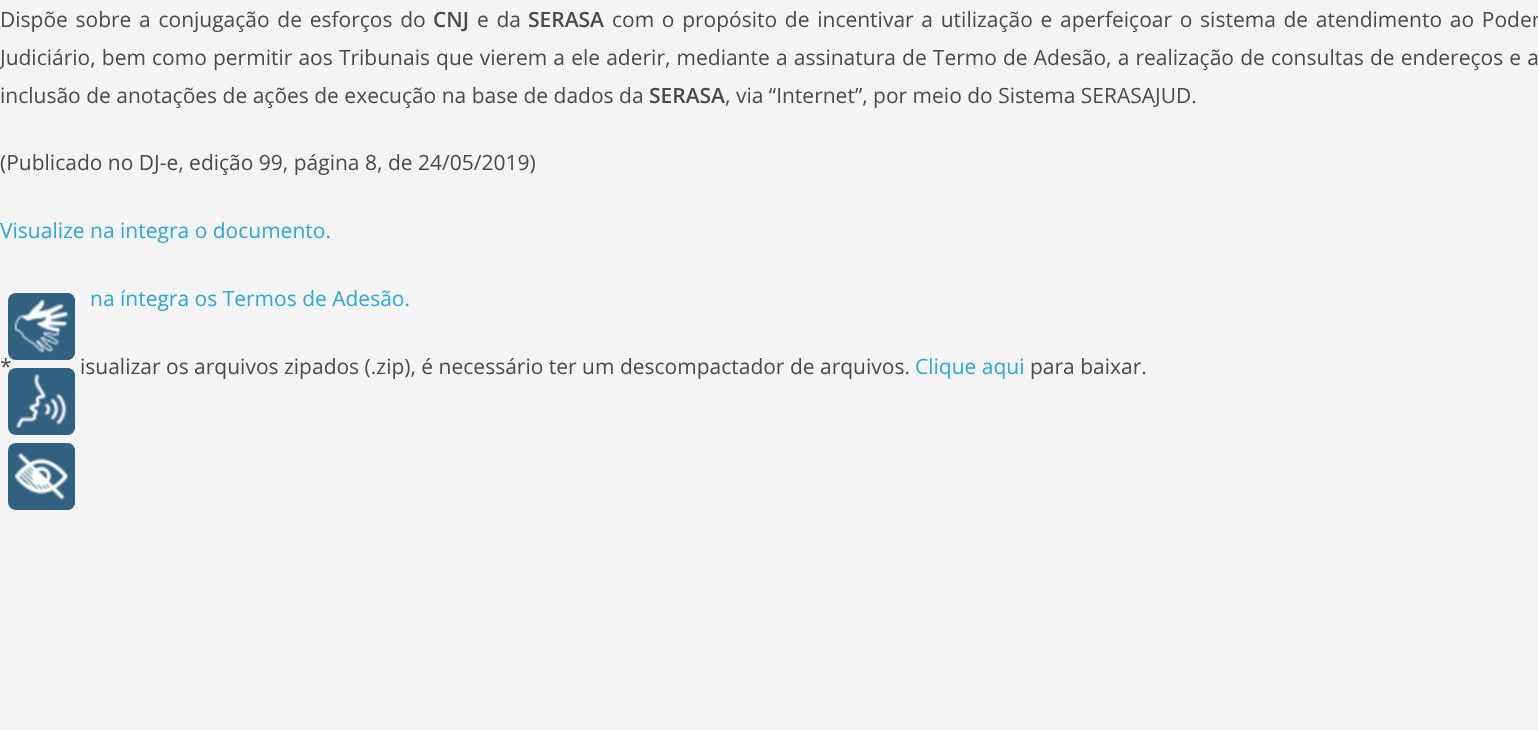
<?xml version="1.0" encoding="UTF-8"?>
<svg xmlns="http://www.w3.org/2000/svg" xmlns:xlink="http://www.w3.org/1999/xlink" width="1538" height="730">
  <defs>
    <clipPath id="clip1"><rect x="8" y="368" width="67" height="67" rx="8" /></clipPath>
    <clipPath id="clip2"><rect x="8" y="443" width="67" height="67" rx="8" /></clipPath>
    <clipPath id="clip3"><rect x="8" y="293" width="67" height="67" rx="8" /></clipPath>
  </defs>
  <rect width="100%" height="100%" fill="#f5f5f5" />
  <rect x="8" y="368" width="67" height="67" rx="8" fill="#316181" />
  <image x="15" y="374" width="52" height="54" xlink:href="image2.png" />
  <g clip-path="url(#clip1)">
    <rect x="68" y="368" width="7" height="67" fill="#316181" />
  </g>
  <rect x="8" y="443" width="67" height="67" rx="8" fill="#316181" />
  <image x="14" y="452" width="54" height="49" xlink:href="image3.png" />
  <g clip-path="url(#clip2)">
    <rect x="68" y="443" width="7" height="67" fill="#316181" />
  </g>
  <text x="0" y="27" word-spacing="2.25" style="font-family: Open Sans; font-size: 21px; fill: #4a4a4a">Dispõe sobre a conjugação de esforços do</text>
  <text x="433" y="27" style="font-family: Open Sans; font-size: 21px; font-weight: 600; fill: #4a4a4a">CNJ</text>
  <text x="477" y="27" word-spacing="2.25" style="font-family: Open Sans; font-size: 21px; fill: #4a4a4a">e da</text>
  <text x="528" y="27" style="font-family: Open Sans; font-size: 21px; font-weight: 600; fill: #4a4a4a">SERASA</text>
  <text x="612" y="27" word-spacing="2.25" style="font-family: Open Sans; font-size: 21px; fill: #4a4a4a">com o propósito de incentivar a utilização e aperfeiçoar o sistema de atendimento ao Poder</text>
  <text x="0" y="65" word-spacing="0.7" style="font-family: Open Sans; font-size: 21px; fill: #4a4a4a">Judiciário, bem como permitir aos Tribunais que vierem a ele aderir, mediante a assinatura de Termo de Adesão, a realização de consultas de endereços e a</text>
  <text x="0" y="103" style="font-family: Open Sans; font-size: 21px; fill: #4a4a4a">inclusão de anotações de ações de execução na base de dados da</text>
  <text x="649" y="103" style="font-family: Open Sans; font-size: 21px; font-weight: 600; fill: #4a4a4a">SERASA</text>
  <text x="725" y="103" style="font-family: Open Sans; font-size: 21px; fill: #4a4a4a">, via “Internet”, por meio do Sistema SERASAJUD.</text>
  <text x="0" y="170" style="font-family: Open Sans; font-size: 21px; fill: #4a4a4a">(Publicado no DJ-e, edição 99, página 8, de 24/05/2019)</text>
  <text x="0" y="238" style="font-family: Open Sans; font-size: 21px; fill: #2ca7df">Visualize na integra o documento.</text>
  <text x="90" y="306" style="font-family: Open Sans; font-size: 21px; fill: #2ca7df">na íntegra os Termos de Adesão.</text>
  <text x="0" y="374" style="font-family: Open Sans; font-size: 21px; fill: #4a4a4a">*</text>
  <rect x="8" y="293" width="67" height="67" rx="8" fill="#316181" />
  <g clip-path="url(#clip3)">
    <rect x="68" y="293" width="7" height="67" fill="#316181" />
  </g>
  <image x="14" y="299" width="54" height="54" xlink:href="image1.png" />
  <text x="80" y="374" style="font-family: Open Sans; font-size: 21px; fill: #4a4a4a">isualizar os arquivos zipados (.zip), é necessário ter um descompactador de arquivos.</text>
  <text x="915" y="374" style="font-family: Open Sans; font-size: 21px; fill: #2ca7df">Clique aqui</text>
  <text x="1030" y="374" style="font-family: Open Sans; font-size: 21px; fill: #4a4a4a">para baixar.</text>
</svg>
